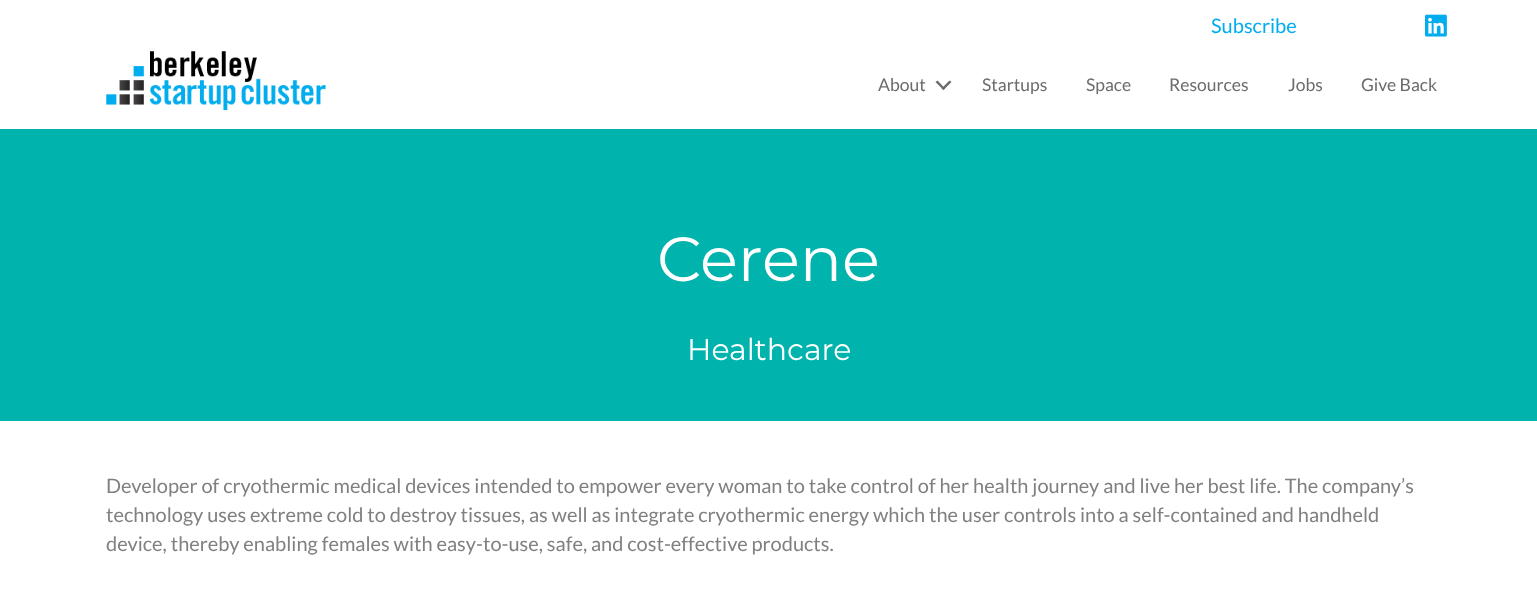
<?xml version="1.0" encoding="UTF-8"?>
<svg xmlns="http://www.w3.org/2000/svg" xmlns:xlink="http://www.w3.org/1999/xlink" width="1537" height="599">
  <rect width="100%" height="100%" fill="#ffffff" />
  <image x="1425" y="14" width="22" height="23" xlink:href="image1.png" />
  <image x="106" y="51" width="220" height="59" xlink:href="image2.png" />
  <path d="M 949.5 80.5 l 2 1.5 l -8 8 l -2 -1.5 z" fill="#6b6b6b" />
  <path d="M 937.5 80.5 l 7.5 8 l -1.5 1.5 l -8 -8 z" fill="#6b6b6b" />
  <rect y="129" width="1537" height="292" fill="#00b3ad" />
  <text x="1211" y="33" style="font-family: Lato; font-size: 20px; fill: #02acf1">Subscribe</text>
  <text x="878" y="91" style="font-family: Lato; font-size: 17.5px; fill: #6b6b6b">About</text>
  <text x="982" y="91" style="font-family: Lato; font-size: 17.5px; fill: #6b6b6b">Startups</text>
  <text x="1086" y="91" style="font-family: Lato; font-size: 17.5px; fill: #6b6b6b">Space</text>
  <text x="1169" y="91" style="font-family: Lato; font-size: 17.5px; fill: #6b6b6b">Resources</text>
  <text x="1288" y="91" style="font-family: Lato; font-size: 17.5px; fill: #6b6b6b">Jobs</text>
  <text x="1361" y="91" style="font-family: Lato; font-size: 17.5px; fill: #6b6b6b">Give Back</text>
  <text x="657" y="281" style="font-family: Montserrat; font-size: 62.5px; font-weight: 100; fill: #ffffff">Cerene</text>
  <text x="687" y="360" style="font-family: Montserrat; font-size: 30px; font-weight: 100; fill: #ffffff">Healthcare</text>
  <text x="106" y="493" style="font-family: Lato; font-size: 20px; fill: #808080">Developer of cryothermic medical devices intended to empower every woman to take control of her health journey and live her best life. The company’s</text>
  <text x="106" y="522" style="font-family: Lato; font-size: 20px; fill: #808080">technology uses extreme cold to destroy tissues, as well as integrate cryothermic energy which the user controls into a self-contained and handheld</text>
  <text x="106" y="551" style="font-family: Lato; font-size: 20px; fill: #808080">device, thereby enabling females with easy-to-use, safe, and cost-effective products.</text>
</svg>
